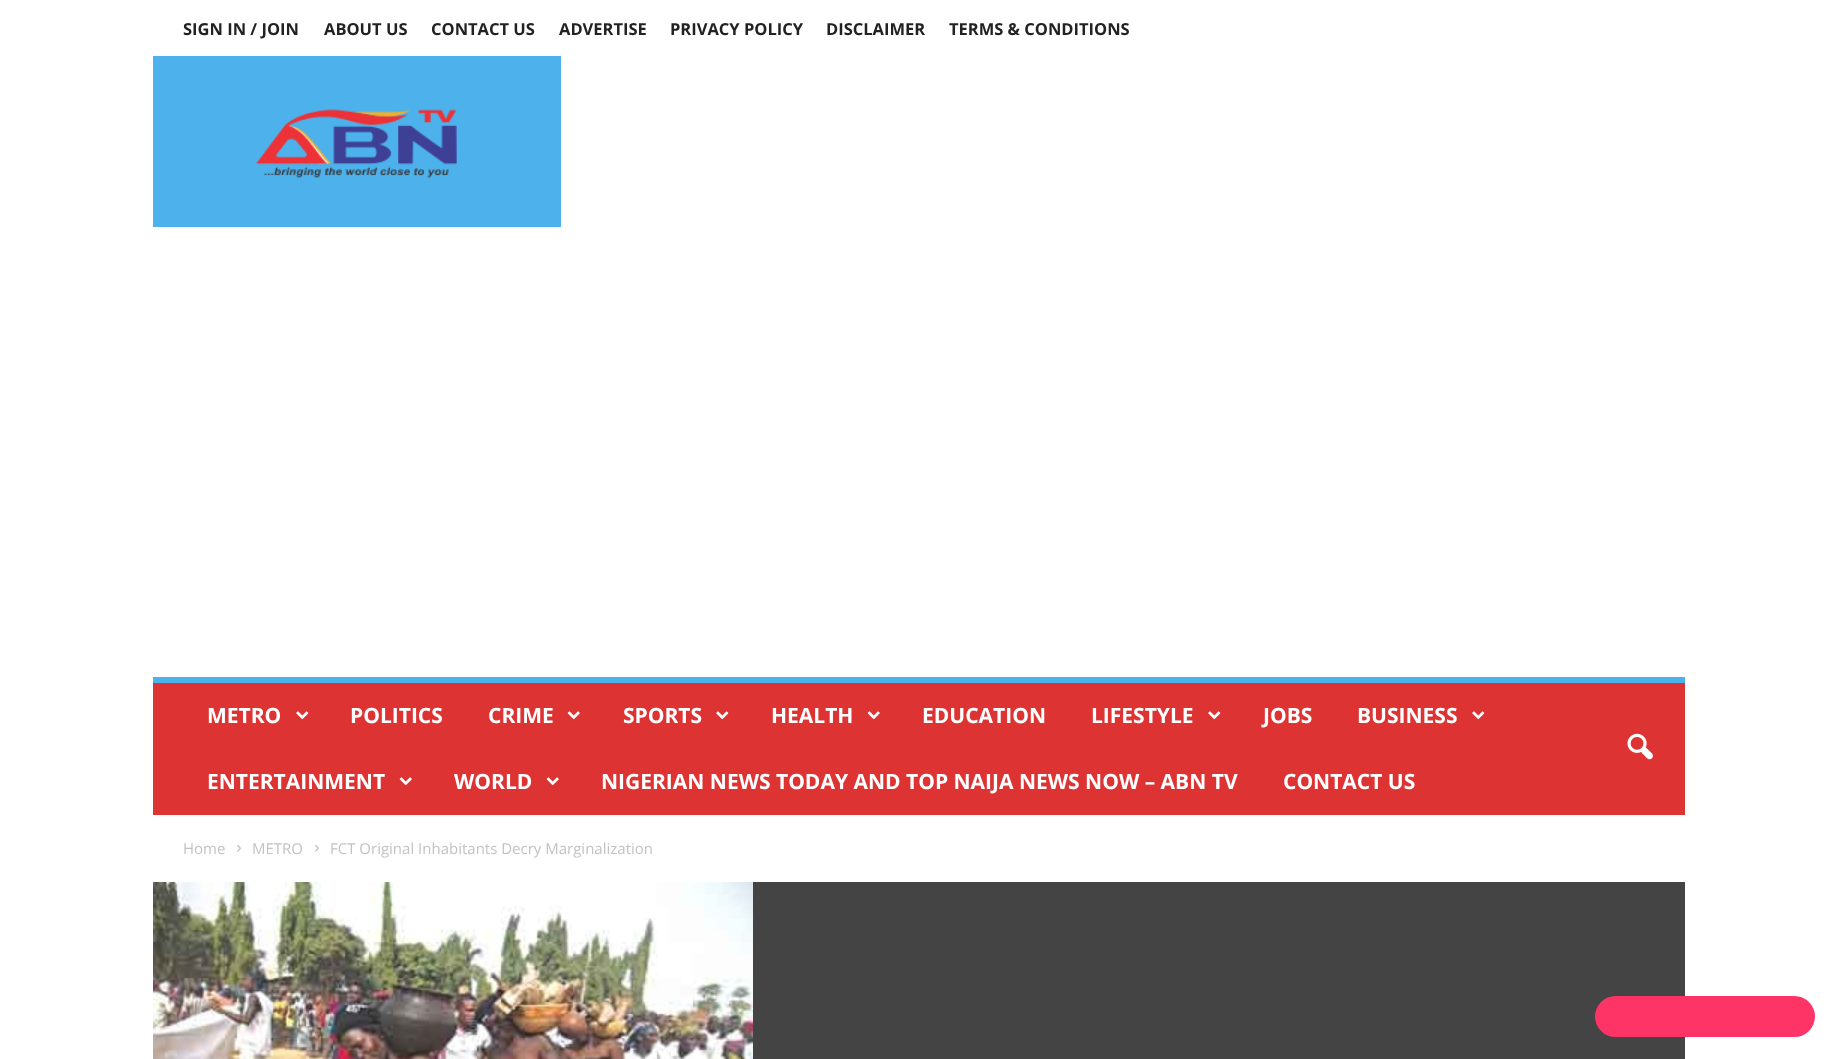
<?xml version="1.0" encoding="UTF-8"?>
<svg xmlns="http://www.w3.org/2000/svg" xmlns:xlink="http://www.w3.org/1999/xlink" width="1837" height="1059">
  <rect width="100%" height="100%" fill="#ffffff" />
  <rect x="153" y="56" width="408" height="171" fill="#4db2ec" />
  <image x="256" y="109" width="201" height="69" xlink:href="image1.png" />
  <rect x="153" y="683" width="1532" height="132" fill="#dd3333" />
  <rect x="153" y="677" width="1532" height="6" fill="#4db2ec" />
  <image x="296" y="711" width="13" height="9" xlink:href="image2.png" />
  <image x="567" y="711" width="13" height="9" xlink:href="image3.png" />
  <image x="716" y="711" width="13" height="9" xlink:href="image2.png" />
  <image x="867" y="711" width="13" height="9" xlink:href="image3.png" />
  <image x="1208" y="711" width="13" height="9" xlink:href="image2.png" />
  <image x="1472" y="711" width="13" height="9" xlink:href="image2.png" />
  <image x="399" y="777" width="13" height="9" xlink:href="image3.png" />
  <image x="546" y="777" width="13" height="9" xlink:href="image3.png" />
  <image x="1627" y="733" width="26" height="27" xlink:href="image4.png" />
  <image x="237" y="844" width="4" height="8" xlink:href="image5.png" />
  <image x="315" y="844" width="4" height="8" xlink:href="image5.png" />
  <rect x="753" y="882" width="932" height="177" fill="#444444" />
  <image x="153" y="882" width="600" height="177" xlink:href="image6.png" />
  <rect x="1595" y="996" width="220" height="41" rx="20.5" fill="#ff3466" />
  <text x="183" y="35" style="font-family: Open Sans; font-size: 16.5px; font-weight: bold; fill: #222222">SIGN IN / JOIN</text>
  <text x="324" y="35" style="font-family: Open Sans; font-size: 16.5px; font-weight: bold; fill: #222222">ABOUT US</text>
  <text x="431" y="35" style="font-family: Open Sans; font-size: 16.5px; font-weight: bold; fill: #222222">CONTACT US</text>
  <text x="559" y="35" style="font-family: Open Sans; font-size: 16.5px; font-weight: bold; fill: #222222">ADVERTISE</text>
  <text x="670" y="35" style="font-family: Open Sans; font-size: 16.5px; font-weight: bold; fill: #222222">PRIVACY POLICY</text>
  <text x="826" y="35" style="font-family: Open Sans; font-size: 16.5px; font-weight: bold; fill: #222222">DISCLAIMER</text>
  <text x="949" y="35" style="font-family: Open Sans; font-size: 16.5px; font-weight: bold; fill: #222222">TERMS &amp; CONDITIONS</text>
  <text x="207" y="723" style="font-family: Open Sans; font-size: 21px; font-weight: bold; fill: #ffffff">METRO</text>
  <text x="350" y="723" style="font-family: Open Sans; font-size: 21px; font-weight: bold; fill: #ffffff">POLITICS</text>
  <text x="488" y="723" style="font-family: Open Sans; font-size: 21px; font-weight: bold; fill: #ffffff">CRIME</text>
  <text x="623" y="723" style="font-family: Open Sans; font-size: 21px; font-weight: bold; fill: #ffffff">SPORTS</text>
  <text x="771" y="723" style="font-family: Open Sans; font-size: 21px; font-weight: bold; fill: #ffffff">HEALTH</text>
  <text x="922" y="723" style="font-family: Open Sans; font-size: 21px; font-weight: bold; fill: #ffffff">EDUCATION</text>
  <text x="1091" y="723" style="font-family: Open Sans; font-size: 21px; font-weight: bold; fill: #ffffff">LIFESTYLE</text>
  <text x="1263" y="723" style="font-family: Open Sans; font-size: 21px; font-weight: bold; fill: #ffffff">JOBS</text>
  <text x="1357" y="723" style="font-family: Open Sans; font-size: 21px; font-weight: bold; fill: #ffffff">BUSINESS</text>
  <text x="207" y="789" style="font-family: Open Sans; font-size: 21px; font-weight: bold; fill: #ffffff">ENTERTAINMENT</text>
  <text x="454" y="789" style="font-family: Open Sans; font-size: 21px; font-weight: bold; fill: #ffffff">WORLD</text>
  <text x="601" y="789" style="font-family: Open Sans; font-size: 21px; font-weight: bold; fill: #ffffff">NIGERIAN NEWS TODAY AND TOP NAIJA NEWS NOW – ABN TV</text>
  <text x="1283" y="789" style="font-family: Open Sans; font-size: 21px; font-weight: bold; fill: #ffffff">CONTACT US</text>
  <text x="183" y="854" style="font-family: Open Sans; font-size: 15px; fill: #c3c3c3">Home</text>
  <text x="252" y="854" style="font-family: Open Sans; font-size: 15px; fill: #c3c3c3">METRO</text>
  <text x="330" y="854" style="font-family: Open Sans; font-size: 15px; fill: #c3c3c3">FCT Original Inhabitants Decry Marginalization</text>
</svg>
